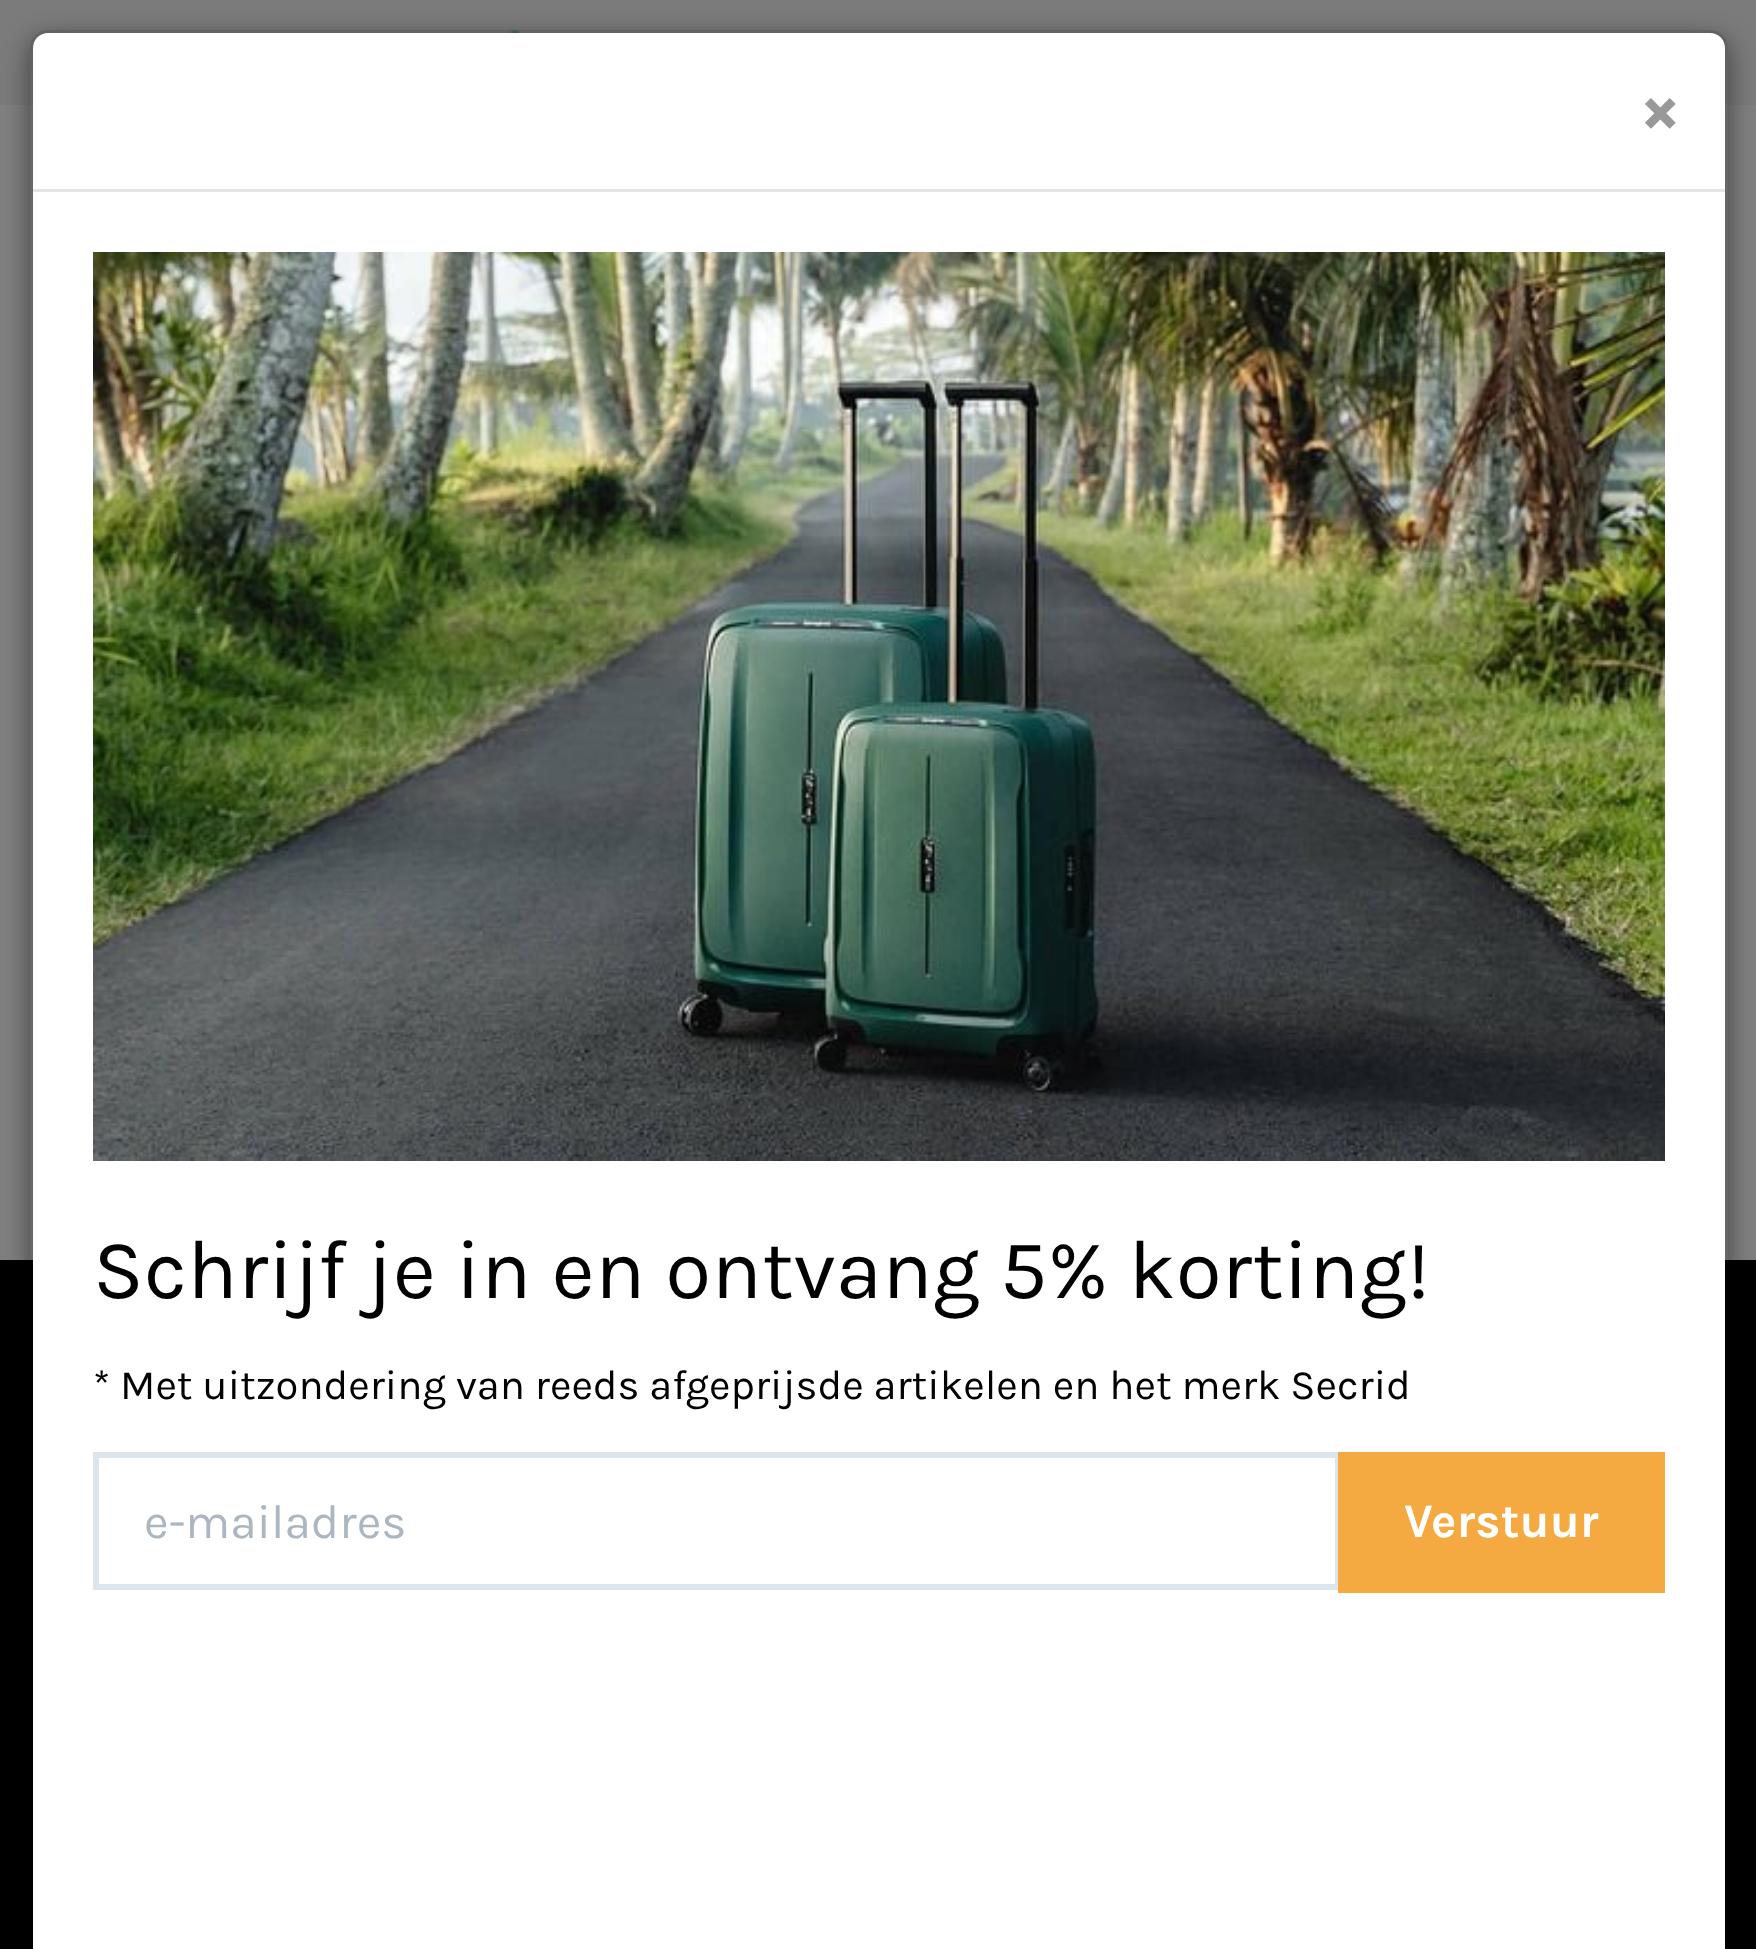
<?xml version="1.0" encoding="UTF-8"?>
<svg xmlns="http://www.w3.org/2000/svg" xmlns:xlink="http://www.w3.org/1999/xlink" width="1756" height="1949">
  <defs>
    <clipPath id="clip1"><path d="M 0 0 h 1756 v 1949 h -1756 z m 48 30 h 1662 c 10 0 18 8 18 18 v 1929 c 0 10 -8 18 -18 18 h -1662 c -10 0 -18 -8 -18 -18 v -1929 c 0 -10 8 -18 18 -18 z" clip-rule="evenodd" /></clipPath>
  </defs>
  <rect width="100%" height="100%" fill="#808080" />
  <rect width="1756" height="105" fill="#7b7b7b" />
  <image x="509" y="29" width="11" height="4" xlink:href="image1.png" />
  <rect y="1260" width="1756" height="689" fill="#000000" />
  <g clip-path="url(#clip1)">
    <rect x="30" y="39" width="1698" height="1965" rx="18" fill="#000000" fill-opacity="0.5" filter="blur(13.5px)" />
  </g>
  <path d="M 48 33 h 1662 c 8.5 0 15 6.5 15 15 v 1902 h -1692 v -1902 c 0 -8.5 6.5 -15 15 -15 z" fill="#ffffff" />
  <rect x="31.5" y="31.5" width="1695" height="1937" rx="16.5" fill="none" stroke="#000000" stroke-opacity="0.2" stroke-width="3" />
  <rect x="33" y="189" width="1692" height="3" fill="#e5e5e5" />
  <image x="93" y="252" width="1572" height="909" xlink:href="image2.png" />
  <rect x="96" y="1455" width="1242" height="132" fill="none" stroke="#dce4ec" stroke-width="6" />
  <rect x="1338" y="1452" width="327" height="141" fill="#f5aa41" />
  <text x="1641" y="132" style="font-family: Karla; font-size: 72px; font-weight: bold; fill: #999999">×</text>
  <text x="93" y="1298" style="font-family: Karla; font-size: 84px; fill: #000000">Schrijf je in en ontvang 5% korting!</text>
  <text x="93" y="1399" word-spacing="-0.1" style="font-family: Karla; font-size: 41.75px; fill: #000000">* Met uitzondering van reeds afgeprijsde artikelen en het merk Secrid</text>
  <text x="144" y="1538" style="font-family: Karla; font-size: 48px; fill: #acb6c0">e-mailadres</text>
  <text x="1404" y="1537" style="font-family: Karla; font-size: 48px; font-weight: bold; fill: #ffffff">Verstuur</text>
</svg>
